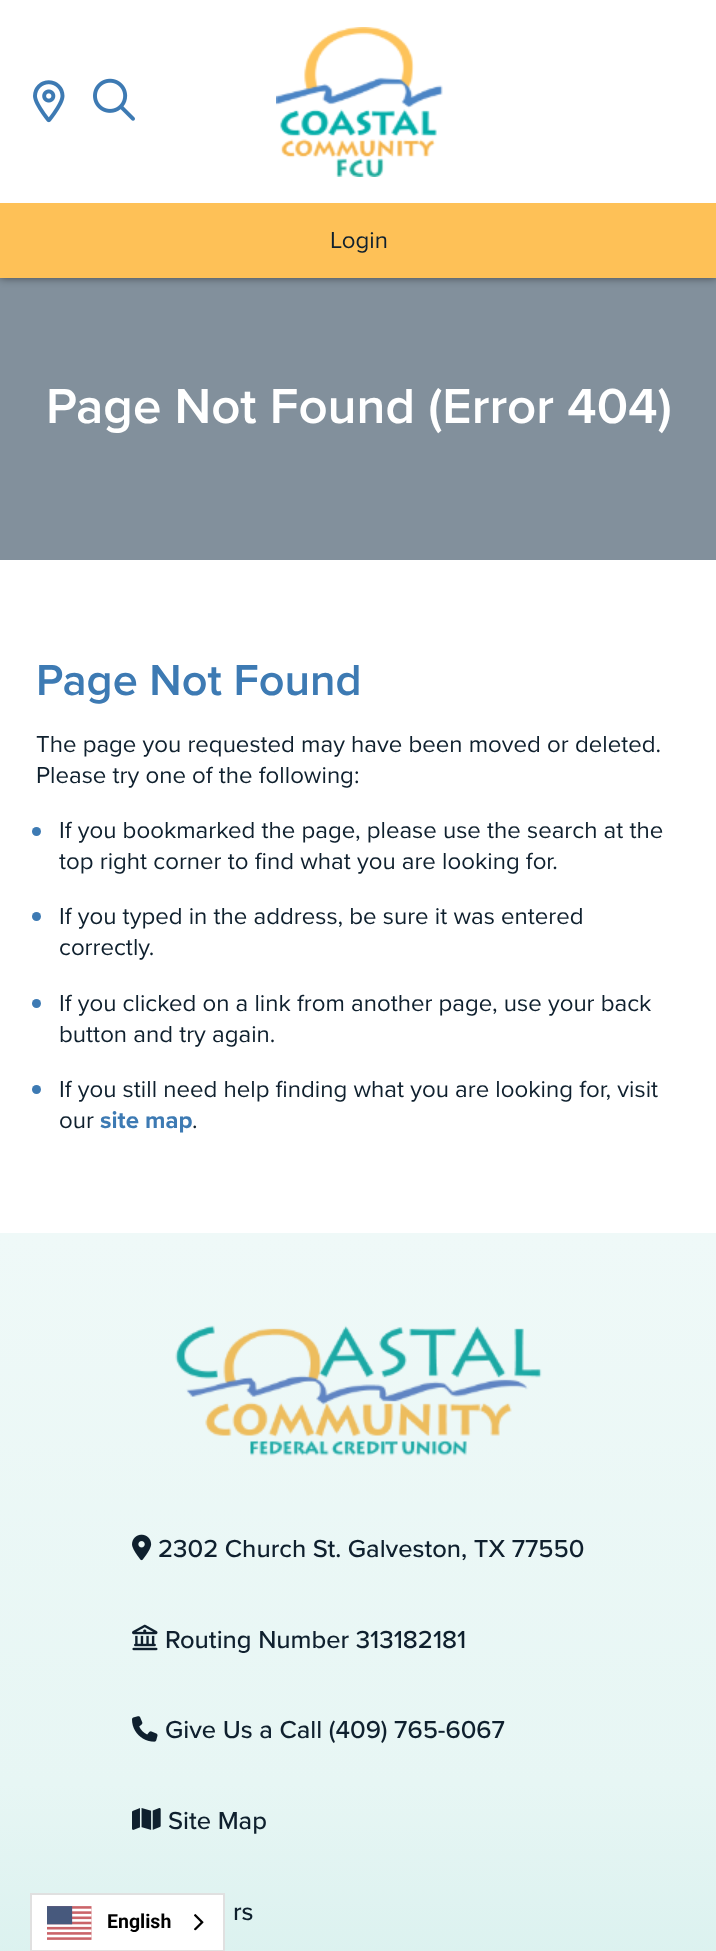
<?xml version="1.0" encoding="UTF-8"?>
<svg xmlns="http://www.w3.org/2000/svg" xmlns:xlink="http://www.w3.org/1999/xlink" width="716" height="1951">
  <defs>
    <linearGradient id="g1" gradientUnits="userSpaceOnUse" x1="358" y1="1233" x2="359" y2="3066"><stop offset="0" stop-color="#eff9f8" /><stop offset="0.3" stop-color="#e7f6f4" /><stop offset="1" stop-color="#91d5d0" /></linearGradient>
  </defs>
  <rect width="100%" height="100%" fill="#ffffff" />
  <rect y="278" width="716" height="282" fill="#82909c" />
  <rect width="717" height="278" fill="#000000" fill-opacity="0.5" filter="blur(4px)" />
  <rect width="716" height="203" fill="#ffffff" />
  <image x="33" y="80" width="32" height="43" xlink:href="image1.png" />
  <image x="93" y="78" width="42" height="43" xlink:href="image2.png" />
  <image x="276" y="27" width="167" height="150" xlink:href="image3.png" />
  <rect y="203" width="716" height="75" fill="#fec157" />
  <circle cx="36.5" cy="831.5" r="4.5" fill="#3d7ab3" />
  <circle cx="36.5" cy="916.5" r="4.5" fill="#3d7ab3" />
  <circle cx="36.5" cy="1003.5" r="4.5" fill="#3d7ab3" />
  <circle cx="36.5" cy="1089.5" r="4.5" fill="#3d7ab3" />
  <rect y="1233" width="716" height="718" fill="url(#g1)" />
  <image x="175" y="1325" width="367" height="131" xlink:href="image4.png" />
  <image x="132" y="1534" width="20" height="27" xlink:href="image5.png" />
  <image x="132" y="1624" width="26" height="27" xlink:href="image6.png" />
  <image x="132" y="1716" width="26" height="26" xlink:href="image7.png" />
  <image x="132" y="1808" width="29" height="22" xlink:href="image8.png" />
  <rect x="31" y="1894" width="193" height="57" fill="#ffffff" stroke="#e0e0e0" stroke-width="2" />
  <image x="47" y="1906" width="45" height="34" xlink:href="image9.png" />
  <image x="194" y="1914" width="10" height="17" xlink:href="image10.png" />
  <text x="330" y="248" style="font-family: Proxima Nova; font-size: 24px; fill: #0f202e">Login</text>
  <text x="46" y="423" style="font-family: Proxima Nova; font-size: 51px; font-weight: 600; fill: #ffffff">Page Not Found (Error 404)</text>
  <text x="36" y="695" style="font-family: Proxima Nova; font-size: 45px; font-weight: 600; fill: #3d7ab3">Page Not Found</text>
  <text x="36" y="752" style="font-family: Proxima Nova; font-size: 24px; fill: #0f202e">The page you requested may have been moved or deleted.</text>
  <text x="36" y="783" style="font-family: Proxima Nova; font-size: 24px; fill: #0f202e">Please try one of the following:</text>
  <text x="59" y="838" style="font-family: Proxima Nova; font-size: 24px; fill: #0f202e">If you bookmarked the page, please use the search at the</text>
  <text x="59" y="869" style="font-family: Proxima Nova; font-size: 24px; fill: #0f202e">top right corner to find what you are looking for.</text>
  <text x="59" y="924" style="font-family: Proxima Nova; font-size: 24px; fill: #0f202e">If you typed in the address, be sure it was entered</text>
  <text x="59" y="955" style="font-family: Proxima Nova; font-size: 24px; fill: #0f202e">correctly.</text>
  <text x="59" y="1011" style="font-family: Proxima Nova; font-size: 24px; fill: #0f202e">If you clicked on a link from another page, use your back</text>
  <text x="59" y="1042" style="font-family: Proxima Nova; font-size: 24px; fill: #0f202e">button and try again.</text>
  <text x="59" y="1097" style="font-family: Proxima Nova; font-size: 24px; fill: #0f202e">If you still need help finding what you are looking for, visit</text>
  <text x="59" y="1128" style="font-family: Proxima Nova; font-size: 24px; fill: #0f202e">our</text>
  <text x="100" y="1128" style="font-family: Proxima Nova; font-size: 24px; font-weight: bold; fill: #3d7ab3">site map</text>
  <text x="192" y="1128" style="font-family: Proxima Nova; font-size: 24px; fill: #0f202e">.</text>
  <text x="158" y="1557" style="font-family: Proxima Nova; font-size: 25.5px; font-weight: 500; fill: #0f202e">2302 Church St. Galveston, TX 77550</text>
  <text x="165" y="1648" style="font-family: Proxima Nova; font-size: 25.5px; font-weight: 500; fill: #0f202e">Routing Number 313182181</text>
  <text x="165" y="1738" style="font-family: Proxima Nova; font-size: 25.5px; font-weight: 500; fill: #0f202e">Give Us a Call (409) 765-6067</text>
  <text x="168" y="1829" style="font-family: Proxima Nova; font-size: 25.5px; font-weight: 500; fill: #0f202e">Site Map</text>
  <text x="233" y="1920" style="font-family: Proxima Nova; font-size: 25.5px; font-weight: 500; fill: #0f202e">rs</text>
  <text x="107" y="1928" style="font-family: Roboto; font-size: 19.5px; font-weight: bold; fill: #000000">English</text>
</svg>
